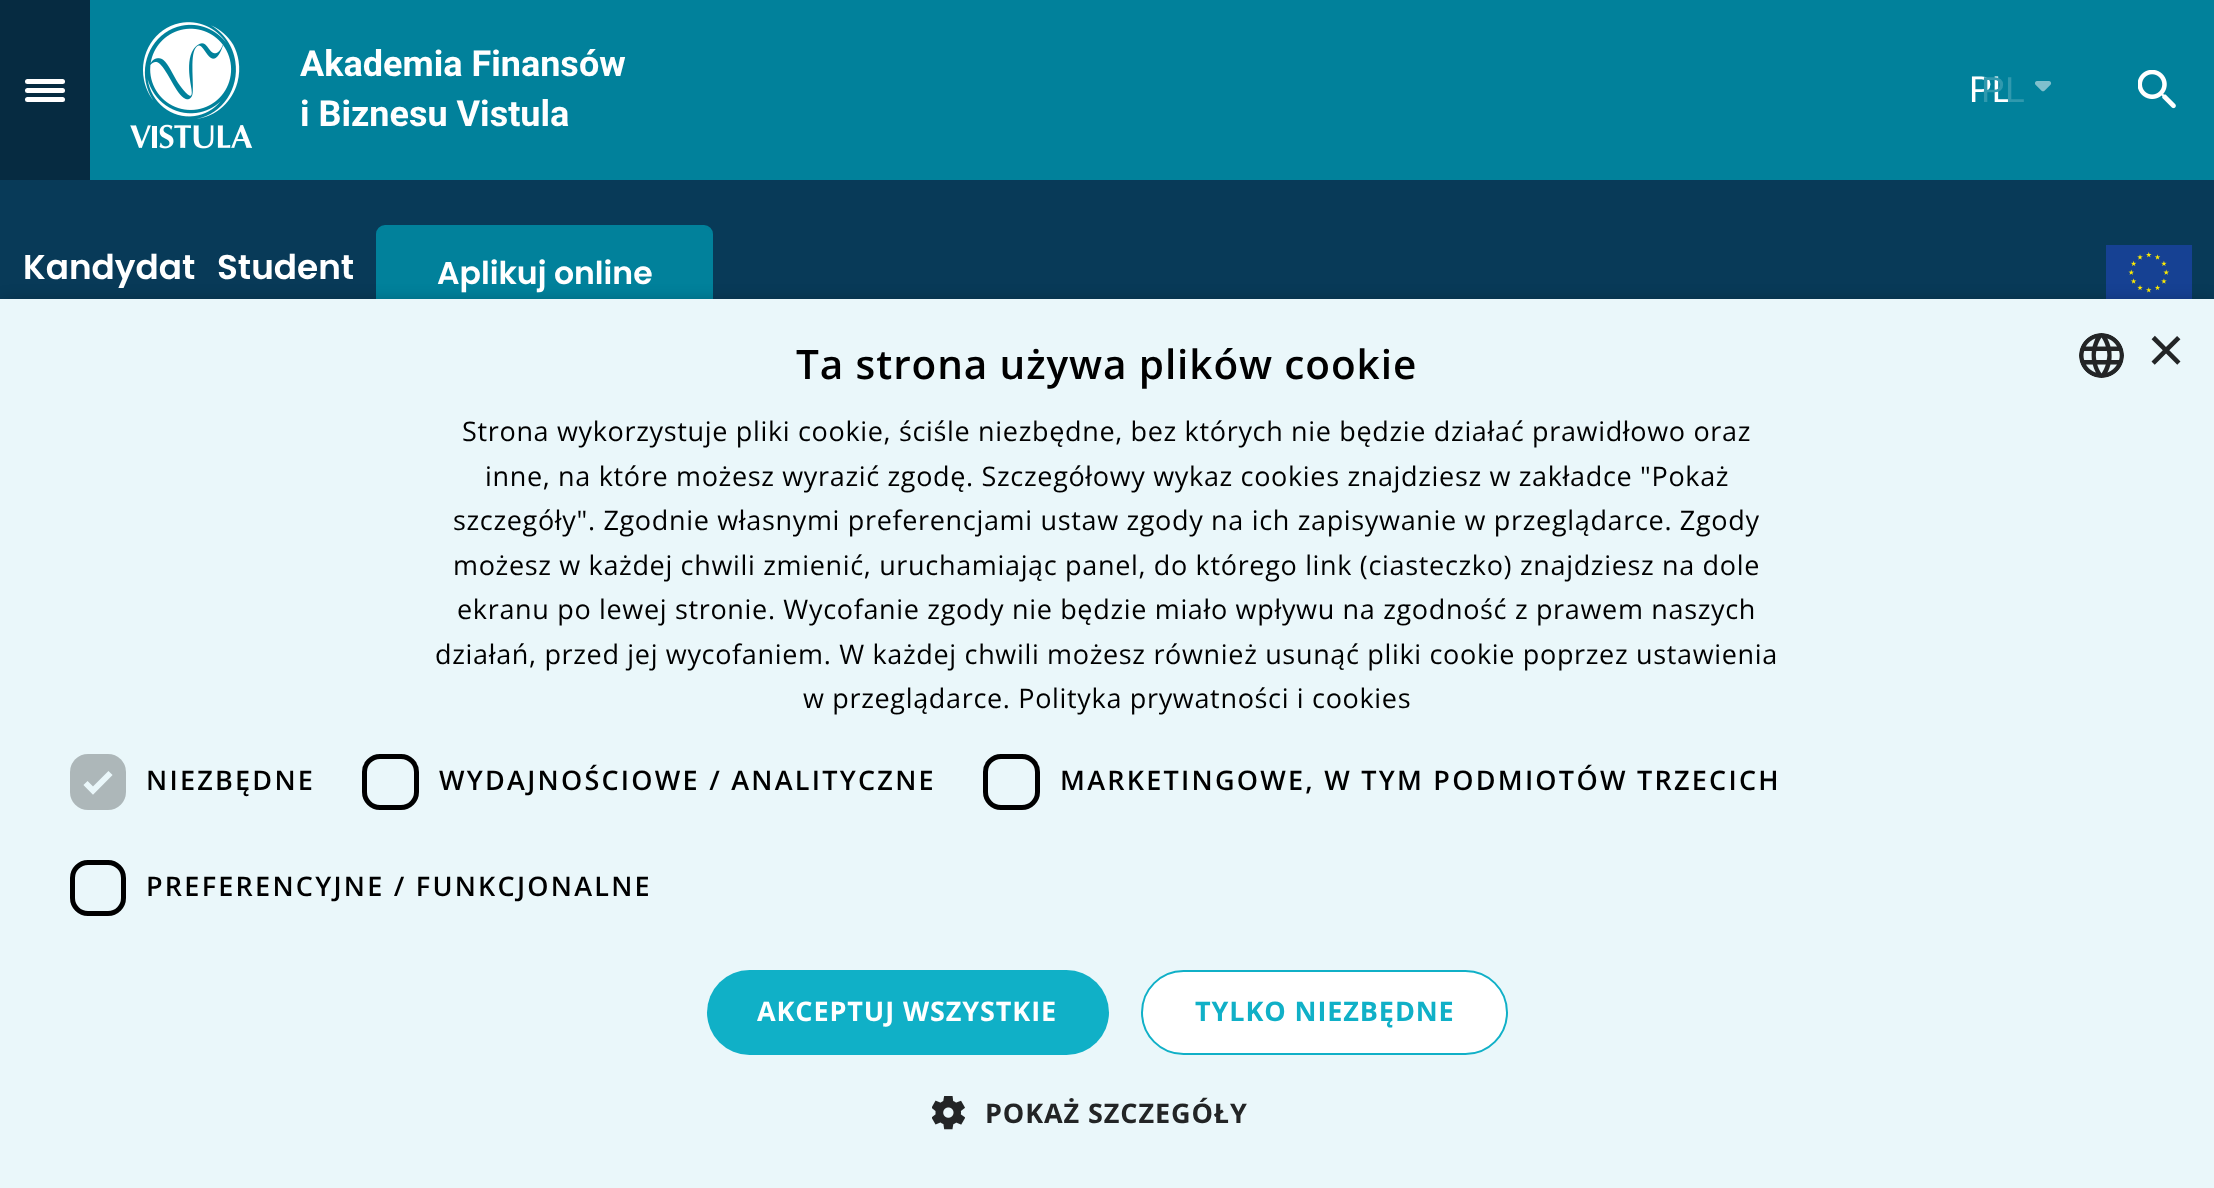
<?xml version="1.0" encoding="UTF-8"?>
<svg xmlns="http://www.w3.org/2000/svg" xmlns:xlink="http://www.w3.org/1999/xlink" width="2214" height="1188">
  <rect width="100%" height="100%" fill="#083a58" />
  <rect x="90" width="2124" height="180" fill="#01819b" />
  <rect width="90" height="180" fill="#062b41" />
  <rect x="25" y="88" width="40" height="5" rx="2.5" fill="#ffffff" />
  <rect x="25" y="79" width="40" height="5" rx="2.5" fill="#ffffff" />
  <rect x="25" y="97" width="40" height="5" rx="2.5" fill="#ffffff" />
  <image x="130" y="22" width="123" height="127" xlink:href="image1.png" />
  <image x="2035" y="81" width="17" height="11" xlink:href="image2.png" />
  <image x="2138" y="70" width="38" height="39" xlink:href="image3.png" />
  <rect x="377" y="226" width="335" height="93" rx="8" fill="#01819b" stroke="#01819b" stroke-width="2" />
  <image x="2106" y="245" width="86" height="54" xlink:href="image4.png" />
  <rect x="2" y="304" width="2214" height="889" fill="#000000" fill-opacity="0.35" filter="blur(9px)" />
  <rect y="299" width="2214" height="889" fill="#eaf7fa" />
  <image x="2079" y="333" width="45" height="45" xlink:href="image5.png" />
  <rect x="70" y="754" width="56" height="56" rx="18" fill="#adb7b9" />
  <path d="M 85.5 783 l 7.5 7.5 l 17.5 -17.5" fill="none" stroke="#eaf7fa" stroke-width="5.9" />
  <rect x="364.5" y="756.5" width="52" height="51" rx="15.5" fill="none" stroke="#000000" stroke-width="5" />
  <rect x="985.5" y="756.5" width="52" height="51" rx="15.5" fill="none" stroke="#000000" stroke-width="5" />
  <rect x="72.5" y="862.5" width="51" height="51" rx="15.5" fill="none" stroke="#000000" stroke-width="5" />
  <rect x="707" y="970" width="402" height="85" rx="42.5" fill="#10b0c7" />
  <rect x="1142" y="971" width="365" height="83" rx="41.5" fill="#ffffff" stroke="#10b0c7" stroke-width="2" />
  <image x="932" y="1096" width="33" height="34" xlink:href="image6.png" />
  <text x="300" y="76" style="font-family: Roboto; font-size: 36px; font-weight: bold; fill: #ffffff">Akademia Finansów</text>
  <text x="300" y="126" style="font-family: Roboto; font-size: 36px; font-weight: bold; fill: #ffffff">i Biznesu Vistula</text>
  <text x="1969" y="102" style="font-family: Roboto; font-size: 36px; fill: #ffffff">PL</text>
  <text x="1981" y="102" style="font-family: Liberation Sans; font-size: 36px; fill: #3099ae">PL</text>
  <text x="23" y="279" style="font-family: Poppins; font-size: 34.25px; font-weight: 600; fill: #ffffff">Kandydat</text>
  <text x="217" y="279" style="font-family: Poppins; font-size: 34.25px; font-weight: 600; fill: #ffffff">Student</text>
  <text x="437" y="284" style="font-family: Poppins; font-size: 31.5px; font-weight: 600; fill: #ffffff">Aplikuj online</text>
  <text x="796" y="379" style="font-family: Open Sans; font-size: 40.5px; font-weight: 600; letter-spacing: 0.9px; fill: #000000">Ta strona używa plików cookie</text>
  <text x="2147" y="372" style="font-family: Liberation Sans; font-size: 65px; fill: #232526">×</text>
  <text x="462" y="441" style="font-family: Open Sans; font-size: 27px; letter-spacing: 0.67px; fill: #000000">Strona wykorzystuje pliki cookie, ściśle niezbędne, bez których nie będzie działać prawidłowo oraz</text>
  <text x="485" y="486" style="font-family: Open Sans; font-size: 27px; letter-spacing: 0.67px; fill: #000000">inne, na które możesz wyrazić zgodę. Szczegółowy wykaz cookies znajdziesz w zakładce "Pokaż</text>
  <text x="453" y="530" style="font-family: Open Sans; font-size: 27px; letter-spacing: 0.67px; fill: #000000">szczegóły". Zgodnie własnymi preferencjami ustaw zgody na ich zapisywanie w przeglądarce. Zgody</text>
  <text x="453" y="575" style="font-family: Open Sans; font-size: 27px; letter-spacing: 0.67px; fill: #000000">możesz w każdej chwili zmienić, uruchamiając panel, do którego link (ciasteczko) znajdziesz na dole</text>
  <text x="457" y="619" style="font-family: Open Sans; font-size: 27px; letter-spacing: 0.67px; fill: #000000">ekranu po lewej stronie. Wycofanie zgody nie będzie miało wpływu na zgodność z prawem naszych</text>
  <text x="435" y="664" style="font-family: Open Sans; font-size: 27px; letter-spacing: 0.67px; fill: #000000">działań, przed jej wycofaniem. W każdej chwili możesz również usunąć pliki cookie poprzez ustawienia</text>
  <text x="803" y="708" style="font-family: Open Sans; font-size: 27px; letter-spacing: 0.67px; fill: #000000">w przeglądarce. Polityka prywatności i cookies</text>
  <text x="146" y="790" style="font-family: Open Sans; font-size: 27px; font-weight: 600; letter-spacing: 2.25px; fill: #000000">NIEZBĘDNE</text>
  <text x="439" y="790" style="font-family: Open Sans; font-size: 27px; font-weight: 600; letter-spacing: 2.25px; fill: #000000">WYDAJNOŚCIOWE / ANALITYCZNE</text>
  <text x="1060" y="790" style="font-family: Open Sans; font-size: 27px; font-weight: 600; letter-spacing: 2.25px; fill: #000000">MARKETINGOWE, W TYM PODMIOTÓW TRZECICH</text>
  <text x="146" y="896" style="font-family: Open Sans; font-size: 27px; font-weight: 600; letter-spacing: 2.25px; fill: #000000">PREFERENCYJNE / FUNKCJONALNE</text>
  <text x="757" y="1021" style="font-family: Open Sans; font-size: 27px; font-weight: bold; letter-spacing: 0.9px; fill: #ffffff">AKCEPTUJ WSZYSTKIE</text>
  <text x="1195" y="1021" style="font-family: Open Sans; font-size: 27px; font-weight: bold; letter-spacing: 0.9px; fill: #10b0c7">TYLKO NIEZBĘDNE</text>
  <text x="985" y="1123" style="font-family: Open Sans; font-size: 27px; font-weight: bold; letter-spacing: 0.9px; fill: #232526">POKAŻ SZCZEGÓŁY</text>
</svg>
